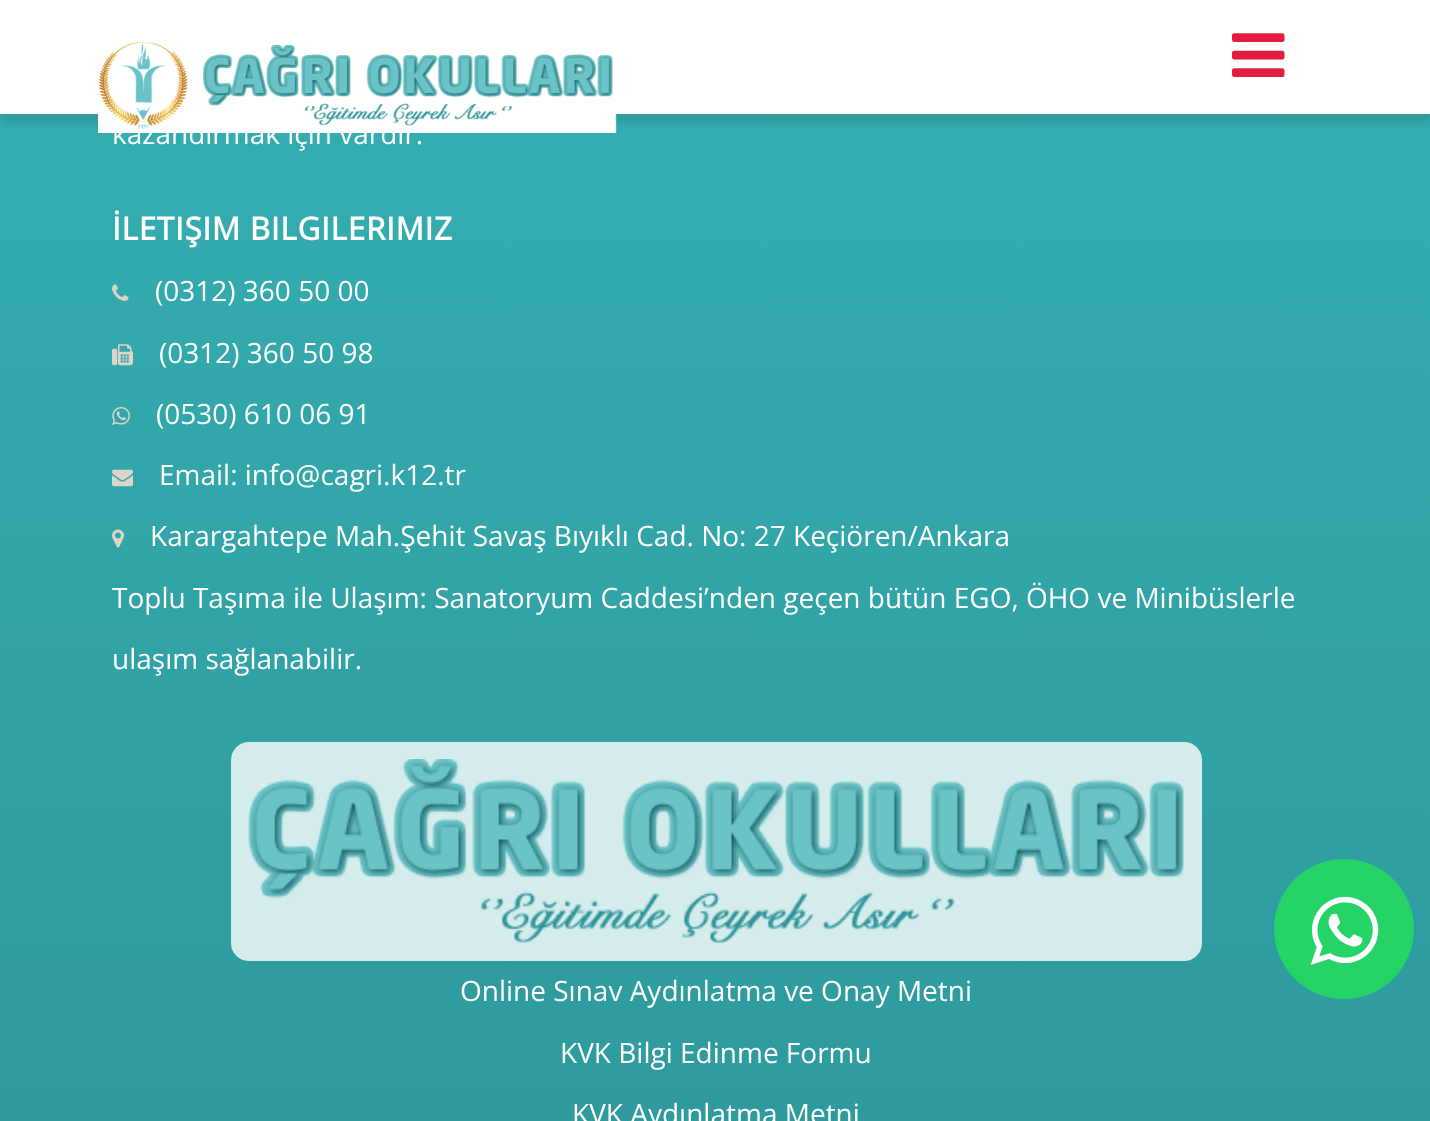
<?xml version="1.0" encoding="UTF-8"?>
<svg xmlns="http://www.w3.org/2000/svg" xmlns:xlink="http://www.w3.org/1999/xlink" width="1430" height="1121">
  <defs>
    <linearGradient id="g1" gradientUnits="userSpaceOnUse" x1="716" y1="-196" x2="716" y2="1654"><stop offset="0" stop-color="#36b3b7" /><stop offset="1" stop-color="#2b9093" /></linearGradient>
  </defs>
  <rect width="100%" height="100%" fill="#ffffff" />
  <rect y="114" width="1430" height="1007" fill="url(#g1)" />
  <rect y="9" width="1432" height="114" fill="#000000" fill-opacity="0.1" filter="blur(4.5px)" />
  <rect y="3" width="1430" height="111" fill="#ffffff" />
  <image x="1232" y="33" width="53" height="44" xlink:href="image2.png" />
  <image x="112" y="284" width="17" height="17" xlink:href="image3.png" />
  <image x="112" y="344" width="21" height="22" xlink:href="image4.png" />
  <image x="112" y="406" width="18" height="19" xlink:href="image5.png" />
  <image x="112" y="469" width="21" height="18" xlink:href="image6.png" />
  <image x="112" y="529" width="12" height="19" xlink:href="image7.png" />
  <rect x="231" y="742" width="971" height="219" rx="18" fill="#ffffff" fill-opacity="0.8" />
  <image x="248" y="759" width="936" height="184" xlink:href="image8.png" />
  <circle cx="1344" cy="929" r="70" fill="#25d366" />
  <image x="1310" y="896" width="69" height="69" xlink:href="image9.png" />
  <text x="112" y="144" style="font-family: Open Sans; font-size: 28px; fill: #ffffff">kazandırmak için vardır.</text>
  <image x="98" y="42" width="519" height="91" xlink:href="image1.png" />
  <text x="112" y="240" style="font-family: Open Sans; font-size: 31.5px; font-weight: bold; letter-spacing: 0.7px; fill: #ffffff">İLETIŞIM BILGILERIMIZ</text>
  <text x="155" y="301" style="font-family: Open Sans; font-size: 28px; fill: #ffffff">(0312) 360 50 00</text>
  <text x="159" y="363" style="font-family: Open Sans; font-size: 28px; fill: #ffffff">(0312) 360 50 98</text>
  <text x="156" y="424" style="font-family: Open Sans; font-size: 28px; fill: #ffffff">(0530) 610 06 91</text>
  <text x="159" y="485" style="font-family: Open Sans; font-size: 28px; fill: #ffffff">Email: info@cagri.k12.tr</text>
  <text x="150" y="546" style="font-family: Open Sans; font-size: 28px; fill: #ffffff">Karargahtepe Mah.Şehit Savaş Bıyıklı Cad. No: 27 Keçiören/Ankara</text>
  <text x="112" y="608" style="font-family: Open Sans; font-size: 28px; fill: #ffffff">Toplu Taşıma ile Ulaşım: Sanatoryum Caddesi’nden geçen bütün EGO, ÖHO ve Minibüslerle</text>
  <text x="112" y="669" style="font-family: Open Sans; font-size: 28px; fill: #ffffff">ulaşım sağlanabilir.</text>
  <text x="460" y="1001" style="font-family: Open Sans; font-size: 28px; fill: #ffffff">Online Sınav Aydınlatma ve Onay Metni</text>
  <text x="560" y="1063" style="font-family: Open Sans; font-size: 28px; fill: #ffffff">KVK Bilgi Edinme Formu</text>
  <text x="572" y="1124" style="font-family: Open Sans; font-size: 28px; fill: #ffffff">KVK Aydınlatma Metni</text>
</svg>
